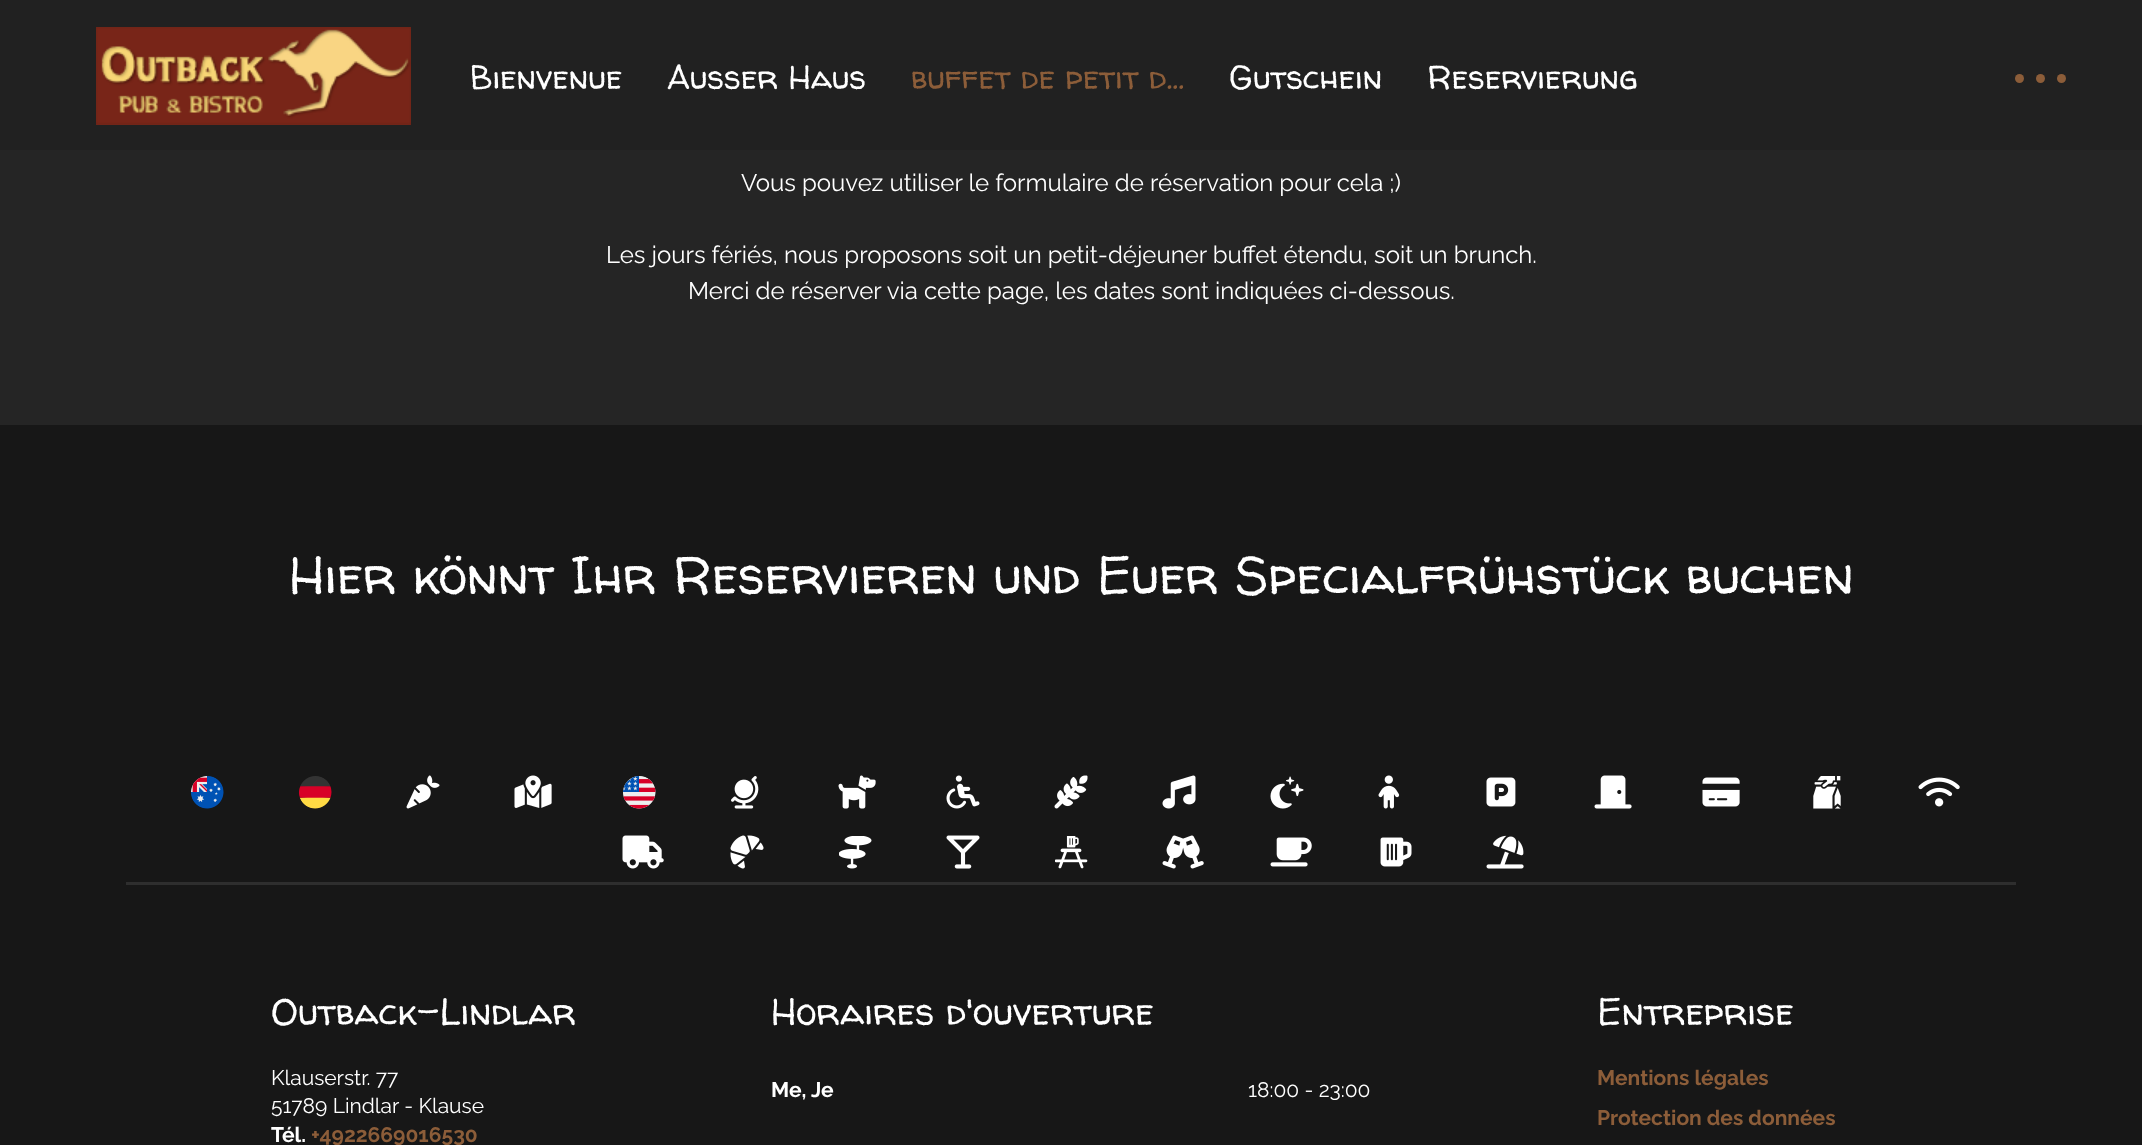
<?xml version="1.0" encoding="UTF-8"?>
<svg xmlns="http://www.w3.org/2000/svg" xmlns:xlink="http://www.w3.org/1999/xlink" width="2142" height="1145">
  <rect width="100%" height="100%" fill="#171717" />
  <rect width="2142" height="150" fill="#212121" />
  <image x="96" y="27" width="315" height="98" xlink:href="image1.png" />
  <circle cx="2019.5" cy="78.5" r="4.5" fill="#8c5d39" />
  <circle cx="2040.5" cy="78.5" r="4.5" fill="#8c5d39" />
  <circle cx="2061.5" cy="78.5" r="4.5" fill="#8c5d39" />
  <rect y="150" width="2142" height="275" fill="#252525" />
  <rect x="126" y="882" width="1890" height="3" fill="#2e2e2e" />
  <image x="191" y="776" width="33" height="33" xlink:href="image2.png" />
  <image x="299" y="776" width="33" height="33" xlink:href="image3.png" />
  <image x="406" y="775" width="34" height="34" xlink:href="image4.png" />
  <image x="514" y="775" width="38" height="33" xlink:href="image5.png" />
  <image x="623" y="776" width="33" height="33" xlink:href="image6.png" />
  <image x="731" y="776" width="28" height="33" xlink:href="image7.png" />
  <image x="838" y="775" width="38" height="34" xlink:href="image8.png" />
  <image x="946" y="775" width="34" height="34" xlink:href="image9.png" />
  <image x="1054" y="775" width="34" height="34" xlink:href="image10.png" />
  <image x="1162" y="775" width="34" height="34" xlink:href="image11.png" />
  <image x="1270" y="776" width="34" height="33" xlink:href="image12.png" />
  <image x="1378" y="775" width="22" height="34" xlink:href="image13.png" />
  <image x="1486" y="777" width="30" height="30" xlink:href="image14.png" />
  <image x="1594" y="775" width="38" height="34" xlink:href="image15.png" />
  <image x="1702" y="777" width="38" height="30" xlink:href="image16.png" />
  <image x="1813" y="776" width="28" height="33" xlink:href="image17.png" />
  <image x="1918" y="777" width="42" height="30" xlink:href="image18.png" />
  <image x="622" y="835" width="42" height="34" xlink:href="image19.png" />
  <image x="730" y="835" width="34" height="34" xlink:href="image20.png" />
  <image x="839" y="836" width="33" height="33" xlink:href="image21.png" />
  <image x="946" y="835" width="34" height="34" xlink:href="image22.png" />
  <image x="1055" y="836" width="33" height="33" xlink:href="image23.png" />
  <image x="1162" y="835" width="42" height="34" xlink:href="image24.png" />
  <image x="1270" y="837" width="42" height="30" xlink:href="image25.png" />
  <image x="1380" y="837" width="32" height="30" xlink:href="image26.png" />
  <image x="1486" y="835" width="38" height="34" xlink:href="image27.png" />
  <text x="470" y="89" style="font-family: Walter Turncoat; font-size: 33px; fill: #ffffff">Bienvenue</text>
  <text x="667" y="89" style="font-family: Walter Turncoat; font-size: 33px; fill: #ffffff">Ausser Haus</text>
  <text x="911" y="89" style="font-family: Walter Turncoat; font-size: 33px; fill: #8c5d39">buffet de petit d...</text>
  <text x="1229" y="89" style="font-family: Walter Turncoat; font-size: 33px; fill: #ffffff">Gutschein</text>
  <text x="1427" y="89" style="font-family: Walter Turncoat; font-size: 33px; fill: #ffffff">Reservierung</text>
  <text x="741" y="191" style="font-family: Raleway; font-size: 24px; font-weight: 100; fill: #ffffff">Vous pouvez utiliser le formulaire de réservation pour cela ;)</text>
  <text x="606" y="263" style="font-family: Raleway; font-size: 24px; font-weight: 100; fill: #ffffff">Les jours fériés, nous proposons soit un petit-déjeuner buffet étendu, soit un brunch.</text>
  <text x="688" y="299" style="font-family: Raleway; font-size: 24px; font-weight: 100; fill: #ffffff">Merci de réserver via cette page, les dates sont indiquées ci-dessous.</text>
  <text x="289" y="594" style="font-family: Walter Turncoat; font-size: 52.5px; fill: #ffffff">Hier könnt Ihr Reservieren und Euer Specialfrühstück buchen</text>
  <text x="271" y="1025" style="font-family: Walter Turncoat; font-size: 37.5px; fill: #ffffff">Outback-Lindlar</text>
  <text x="271" y="1085" style="font-family: Raleway; font-size: 21px; font-weight: 100; fill: #ffffff">Klauserstr. 77</text>
  <text x="271" y="1113" style="font-family: Raleway; font-size: 21px; font-weight: 100; fill: #ffffff">51789 Lindlar - Klause</text>
  <text x="271" y="1142" style="font-family: Raleway; font-size: 21px; font-weight: bold; fill: #ffffff">Tél.</text>
  <text x="311" y="1142" style="font-family: Raleway; font-size: 21px; font-weight: bold; fill: #8c5d39">+4922669016530</text>
  <text x="771" y="1025" style="font-family: Walter Turncoat; font-size: 37.5px; fill: #ffffff">Horaires d'ouverture</text>
  <text x="771" y="1097" style="font-family: Raleway; font-size: 21px; font-weight: bold; fill: #ffffff">Me, Je</text>
  <text x="1248" y="1097" style="font-family: Raleway; font-size: 21px; font-weight: 100; fill: #ffffff">18:00 - 23:00</text>
  <text x="1597" y="1025" style="font-family: Walter Turncoat; font-size: 37.5px; fill: #ffffff">Entreprise</text>
  <text x="1597" y="1085" style="font-family: Raleway; font-size: 21px; font-weight: bold; fill: #8c5d39">Mentions légales</text>
  <text x="1597" y="1125" style="font-family: Raleway; font-size: 21px; font-weight: bold; fill: #8c5d39">Protection des données</text>
</svg>
